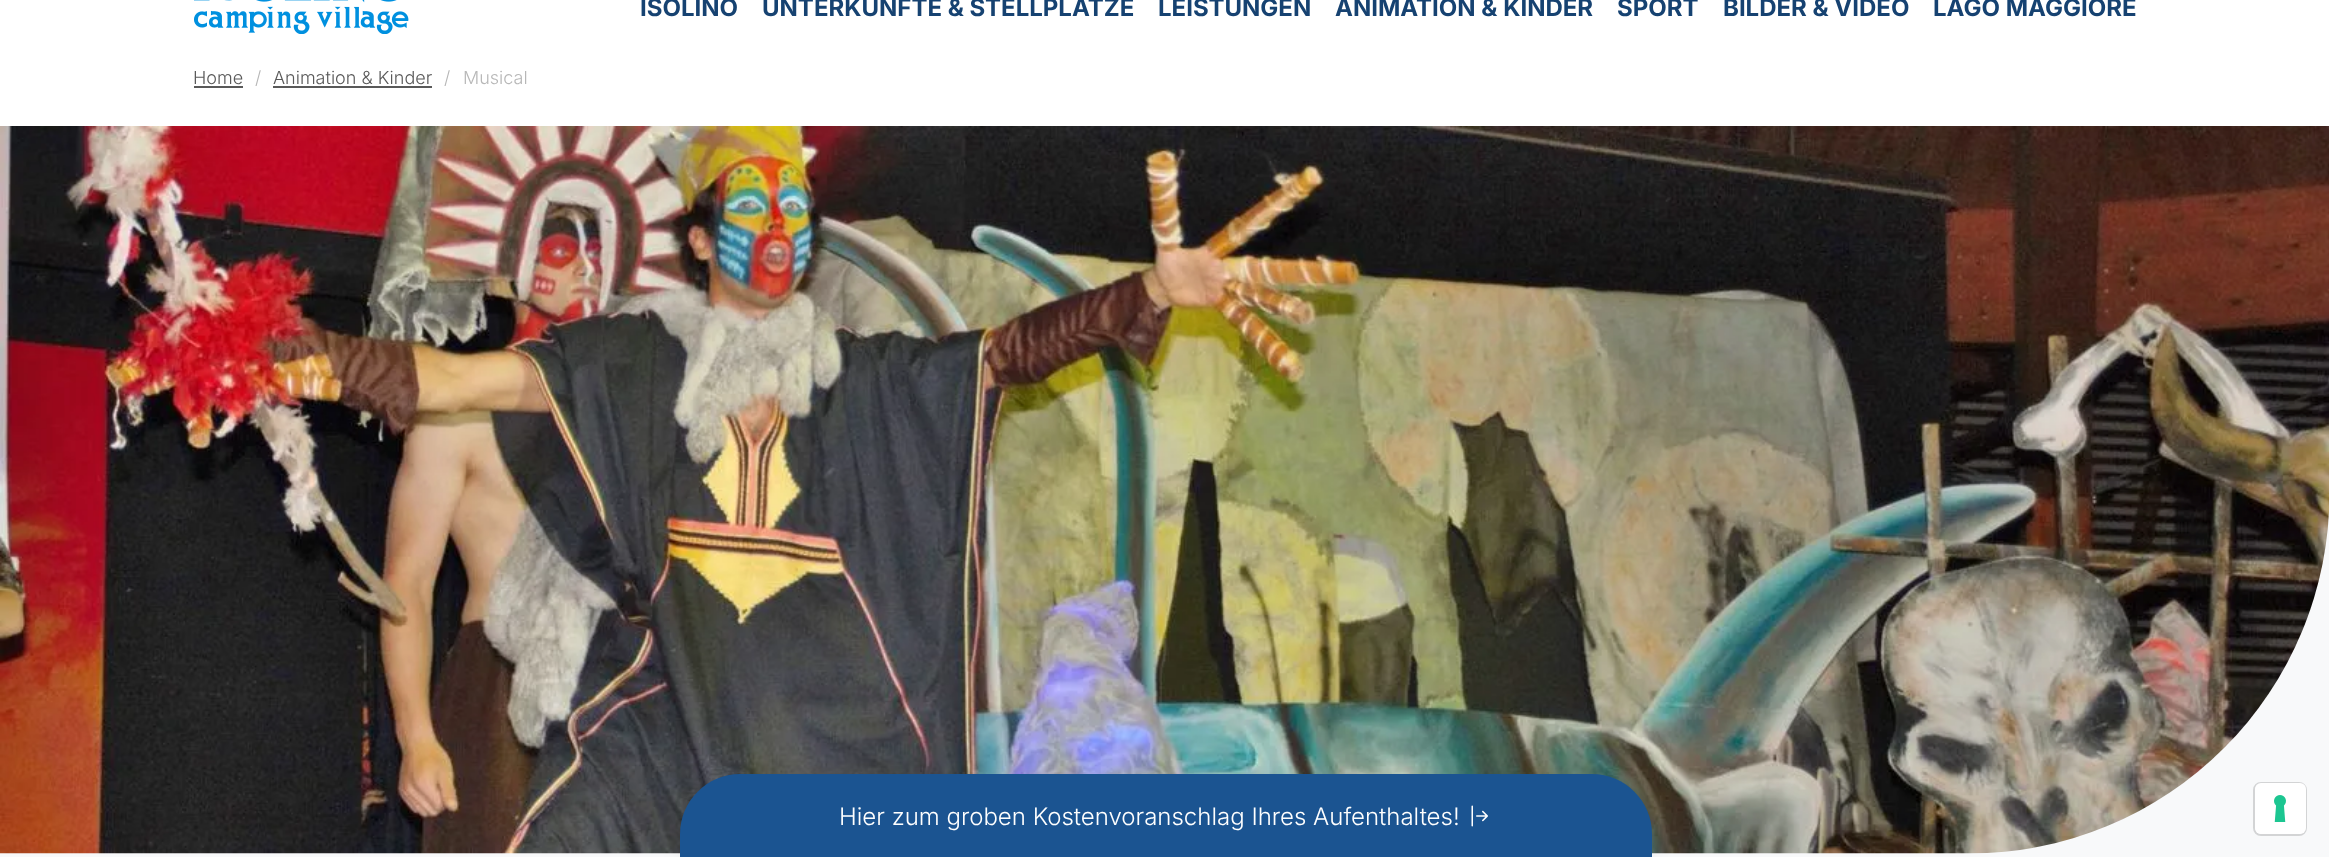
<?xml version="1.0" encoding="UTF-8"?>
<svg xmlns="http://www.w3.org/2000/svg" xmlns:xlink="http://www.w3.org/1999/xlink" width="2329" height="857">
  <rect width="100%" height="100%" fill="#ffffff" />
  <image x="194" y="0" width="215" height="34" xlink:href="image1.png" />
  <rect x="194" y="86" width="49" height="2" fill="#595959" />
  <rect x="273" y="86" width="159" height="2" fill="#595959" />
  <rect y="512" width="2329" height="345" fill="#f8f9fa" />
  <image x="0" y="126" width="2329" height="728" xlink:href="image2.png" />
  <rect x="680" y="786" width="972" height="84" rx="60" fill="#000000" fill-opacity="0.15" filter="blur(12px)" />
  <path d="M 740 774 h 852 c 33 0 60 27 60 60 v 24 h -972 v -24 c 0 -33 27 -60 60 -60 z" fill="#1b5491" />
  <image x="1471" y="805" width="17" height="22" xlink:href="image3.png" />
  <rect x="2254" y="783" width="52" height="52" rx="7" fill="none" stroke="#d3d4d5" stroke-width="2" />
  <rect x="2255" y="783" width="51" height="51" rx="6" fill="#ffffff" />
  <image x="2274" y="795" width="12" height="27" xlink:href="image4.png" />
  <text x="640" y="16" style="font-family: Inter; font-size: 24px; font-weight: bold; fill: #164271">ISOLINO</text>
  <text x="762" y="16" style="font-family: Inter; font-size: 24px; font-weight: bold; fill: #164271">UNTERKÜNFTE &amp; STELLPLÄTZE</text>
  <text x="1158" y="16" style="font-family: Inter; font-size: 24px; font-weight: bold; fill: #164271">LEISTUNGEN</text>
  <text x="1335" y="16" style="font-family: Inter; font-size: 24px; font-weight: bold; fill: #164271">ANIMATION &amp; KINDER</text>
  <text x="1617" y="16" style="font-family: Inter; font-size: 24px; font-weight: bold; fill: #164271">SPORT</text>
  <text x="1723" y="16" style="font-family: Inter; font-size: 24px; font-weight: bold; fill: #164271">BILDER &amp; VIDEO</text>
  <text x="1933" y="16" style="font-family: Inter; font-size: 24px; font-weight: bold; fill: #164271">LAGO MAGGIORE</text>
  <text x="193" y="84" style="font-family: Inter; font-size: 18px; font-weight: 300; fill: #595959">Home</text>
  <text x="255" y="84" style="font-family: Inter; font-size: 18px; font-weight: 300; fill: #b7b7b7">/</text>
  <text x="273" y="84" style="font-family: Inter; font-size: 18px; font-weight: 300; fill: #595959">Animation &amp; Kinder</text>
  <text x="444" y="84" style="font-family: Inter; font-size: 18px; font-weight: 300; fill: #b7b7b7">/</text>
  <text x="463" y="84" style="font-family: Inter; font-size: 18px; font-weight: 300; fill: #b7b7b7">Musical</text>
  <text x="839" y="825" style="font-family: Inter; font-size: 24px; font-weight: 300; fill: #ffffff">Hier zum groben Kostenvoranschlag Ihres Aufenthaltes!</text>
</svg>
